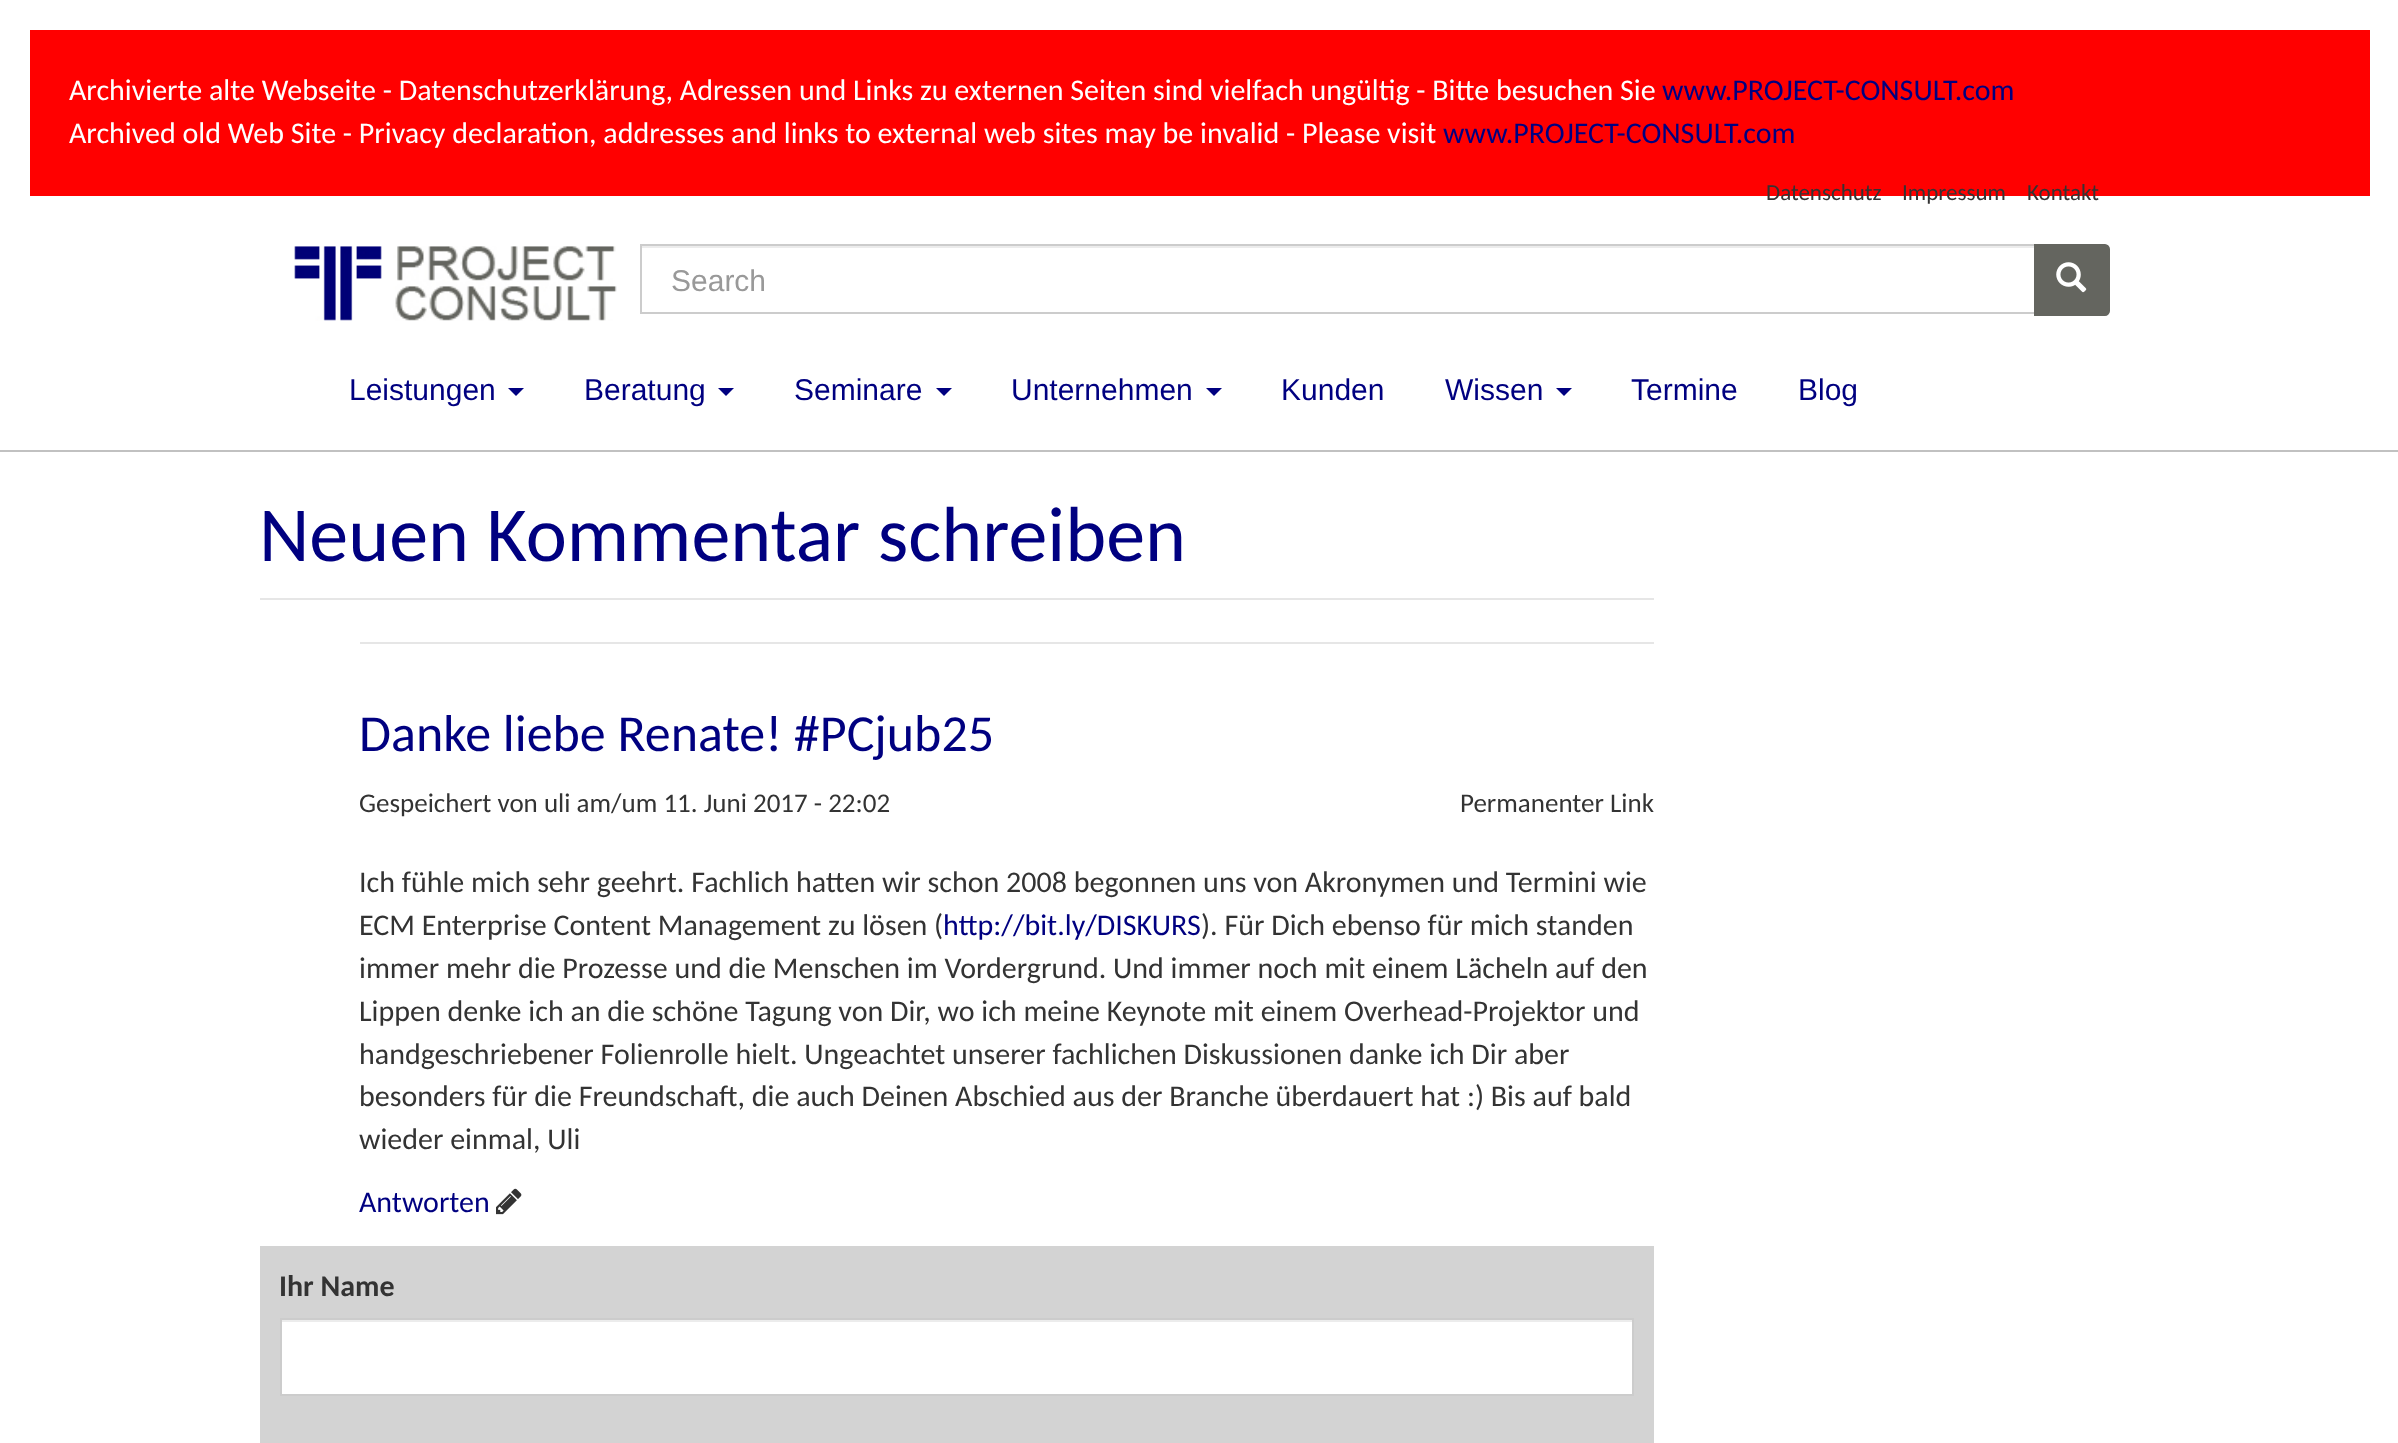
<?xml version="1.0" encoding="UTF-8"?>
<svg xmlns="http://www.w3.org/2000/svg" xmlns:xlink="http://www.w3.org/1999/xlink" width="2398" height="1443">
  <rect width="100%" height="100%" fill="#ffffff" />
  <rect x="30" y="30" width="2340" height="166" fill="#ff0000" />
  <image x="294" y="246" width="323" height="75" xlink:href="image1.png" />
  <rect x="642" y="246" width="1392" height="2" fill="#ececec" />
  <rect x="641" y="245" width="1414" height="68" fill="none" stroke="#cccccc" stroke-width="2" />
  <path d="M 2035 245 h 70 c 2 0 4 2 4 4 v 62 c 0 2 -2 4 -4 4 h -70 z" fill="#64655f" stroke="#64655f" stroke-width="2" />
  <image x="2056" y="262" width="31" height="31" xlink:href="image2.png" />
  <path d="M 508 388 h 16 l -8 8 z" fill="#000080" />
  <path d="M 718 388 h 16 l -8 8 z" fill="#000080" />
  <path d="M 936 388 h 16 l -8 8 z" fill="#000080" />
  <path d="M 1206 388 h 16 l -8 8 z" fill="#000080" />
  <path d="M 1556 388 h 16 l -8 8 z" fill="#000080" />
  <rect y="450" width="2398" height="2" fill="#c1c1c1" />
  <rect x="260" y="598" width="1394" height="2" fill="#e6e6e6" />
  <rect x="360" y="642" width="1294" height="2" fill="#e6e6e6" />
  <image x="496" y="1188" width="26" height="27" xlink:href="image3.png" />
  <rect x="260" y="1246" width="1394" height="197" fill="#d3d3d3" />
  <rect x="282" y="1322" width="1350" height="72" fill="#ffffff" />
  <rect x="282" y="1320" width="1350" height="2" fill="#ececec" />
  <rect x="281" y="1319" width="1352" height="76" fill="none" stroke="#cccccc" stroke-width="2" />
  <text x="69" y="100" style="font-family: Carlito; font-size: 30px; fill: #ffffff">Archivierte alte Webseite - Datenschutzerklärung, Adressen und Links zu externen Seiten sind vielfach ungültig - Bitte besuchen Sie</text>
  <text x="1662" y="100" style="font-family: Carlito; font-size: 30px; fill: #000080">www.PROJECT-CONSULT.com</text>
  <text x="69" y="143" style="font-family: Carlito; font-size: 30px; fill: #ffffff">Archived old Web Site - Privacy declaration, addresses and links to external web sites may be invalid - Please visit</text>
  <text x="1443" y="143" style="font-family: Carlito; font-size: 30px; fill: #000080">www.PROJECT-CONSULT.com</text>
  <text x="1766" y="200" style="font-family: Carlito; font-size: 23px; fill: #333333">Datenschutz</text>
  <text x="1902" y="200" style="font-family: Carlito; font-size: 23px; fill: #333333">Impressum</text>
  <text x="2027" y="200" style="font-family: Carlito; font-size: 23px; fill: #333333">Kontakt</text>
  <text x="671" y="291" style="font-family: Liberation Sans; font-size: 30px; fill: #999999">Search</text>
  <text x="349" y="400" style="font-family: Liberation Sans; font-size: 30px; fill: #000080">Leistungen</text>
  <text x="584" y="400" style="font-family: Liberation Sans; font-size: 30px; fill: #000080">Beratung</text>
  <text x="794" y="400" style="font-family: Liberation Sans; font-size: 30px; fill: #000080">Seminare</text>
  <text x="1011" y="400" style="font-family: Liberation Sans; font-size: 30px; fill: #000080">Unternehmen</text>
  <text x="1281" y="400" style="font-family: Liberation Sans; font-size: 30px; fill: #000080">Kunden</text>
  <text x="1445" y="400" style="font-family: Liberation Sans; font-size: 30px; fill: #000080">Wissen</text>
  <text x="1631" y="400" style="font-family: Liberation Sans; font-size: 30px; fill: #000080">Termine</text>
  <text x="1798" y="400" style="font-family: Liberation Sans; font-size: 30px; fill: #000080">Blog</text>
  <text x="259" y="561" style="font-family: Carlito; font-size: 78px; fill: #000080">Neuen Kommentar schreiben</text>
  <text x="359" y="751" style="font-family: Carlito; font-size: 52px; fill: #000080">Danke liebe Renate! #PCjub25</text>
  <text x="359" y="812" style="font-family: Carlito; font-size: 27px; fill: #333333">Gespeichert von uli am/um 11. Juni 2017 - 22:02</text>
  <text x="1460" y="812" style="font-family: Carlito; font-size: 27px; fill: #333333">Permanenter Link</text>
  <text x="359" y="892" style="font-family: Carlito; font-size: 30px; fill: #333333">Ich fühle mich sehr geehrt. Fachlich hatten wir schon 2008 begonnen uns von Akronymen und Termini wie</text>
  <text x="359" y="935" style="font-family: Carlito; font-size: 30px; fill: #333333">ECM Enterprise Content Management zu lösen (</text>
  <text x="943" y="935" style="font-family: Carlito; font-size: 30px; fill: #000080">http://bit.ly/DISKURS</text>
  <text x="1201" y="935" style="font-family: Carlito; font-size: 30px; fill: #333333">). Für Dich ebenso für mich standen</text>
  <text x="359" y="978" style="font-family: Carlito; font-size: 30px; fill: #333333">immer mehr die Prozesse und die Menschen im Vordergrund. Und immer noch mit einem Lächeln auf den</text>
  <text x="359" y="1021" style="font-family: Carlito; font-size: 30px; fill: #333333">Lippen denke ich an die schöne Tagung von Dir, wo ich meine Keynote mit einem Overhead-Projektor und</text>
  <text x="359" y="1064" style="font-family: Carlito; font-size: 30px; fill: #333333">handgeschriebener Folienrolle hielt. Ungeachtet unserer fachlichen Diskussionen danke ich Dir aber</text>
  <text x="359" y="1106" style="font-family: Carlito; font-size: 30px; fill: #333333">besonders für die Freundschaft, die auch Deinen Abschied aus der Branche überdauert hat :) Bis auf bald</text>
  <text x="359" y="1149" style="font-family: Carlito; font-size: 30px; fill: #333333">wieder einmal, Uli</text>
  <text x="359" y="1212" style="font-family: Carlito; font-size: 30px; fill: #000080">Antworten</text>
  <text x="279" y="1296" style="font-family: Carlito; font-size: 30px; font-weight: bold; fill: #333333">Ihr Name</text>
</svg>
